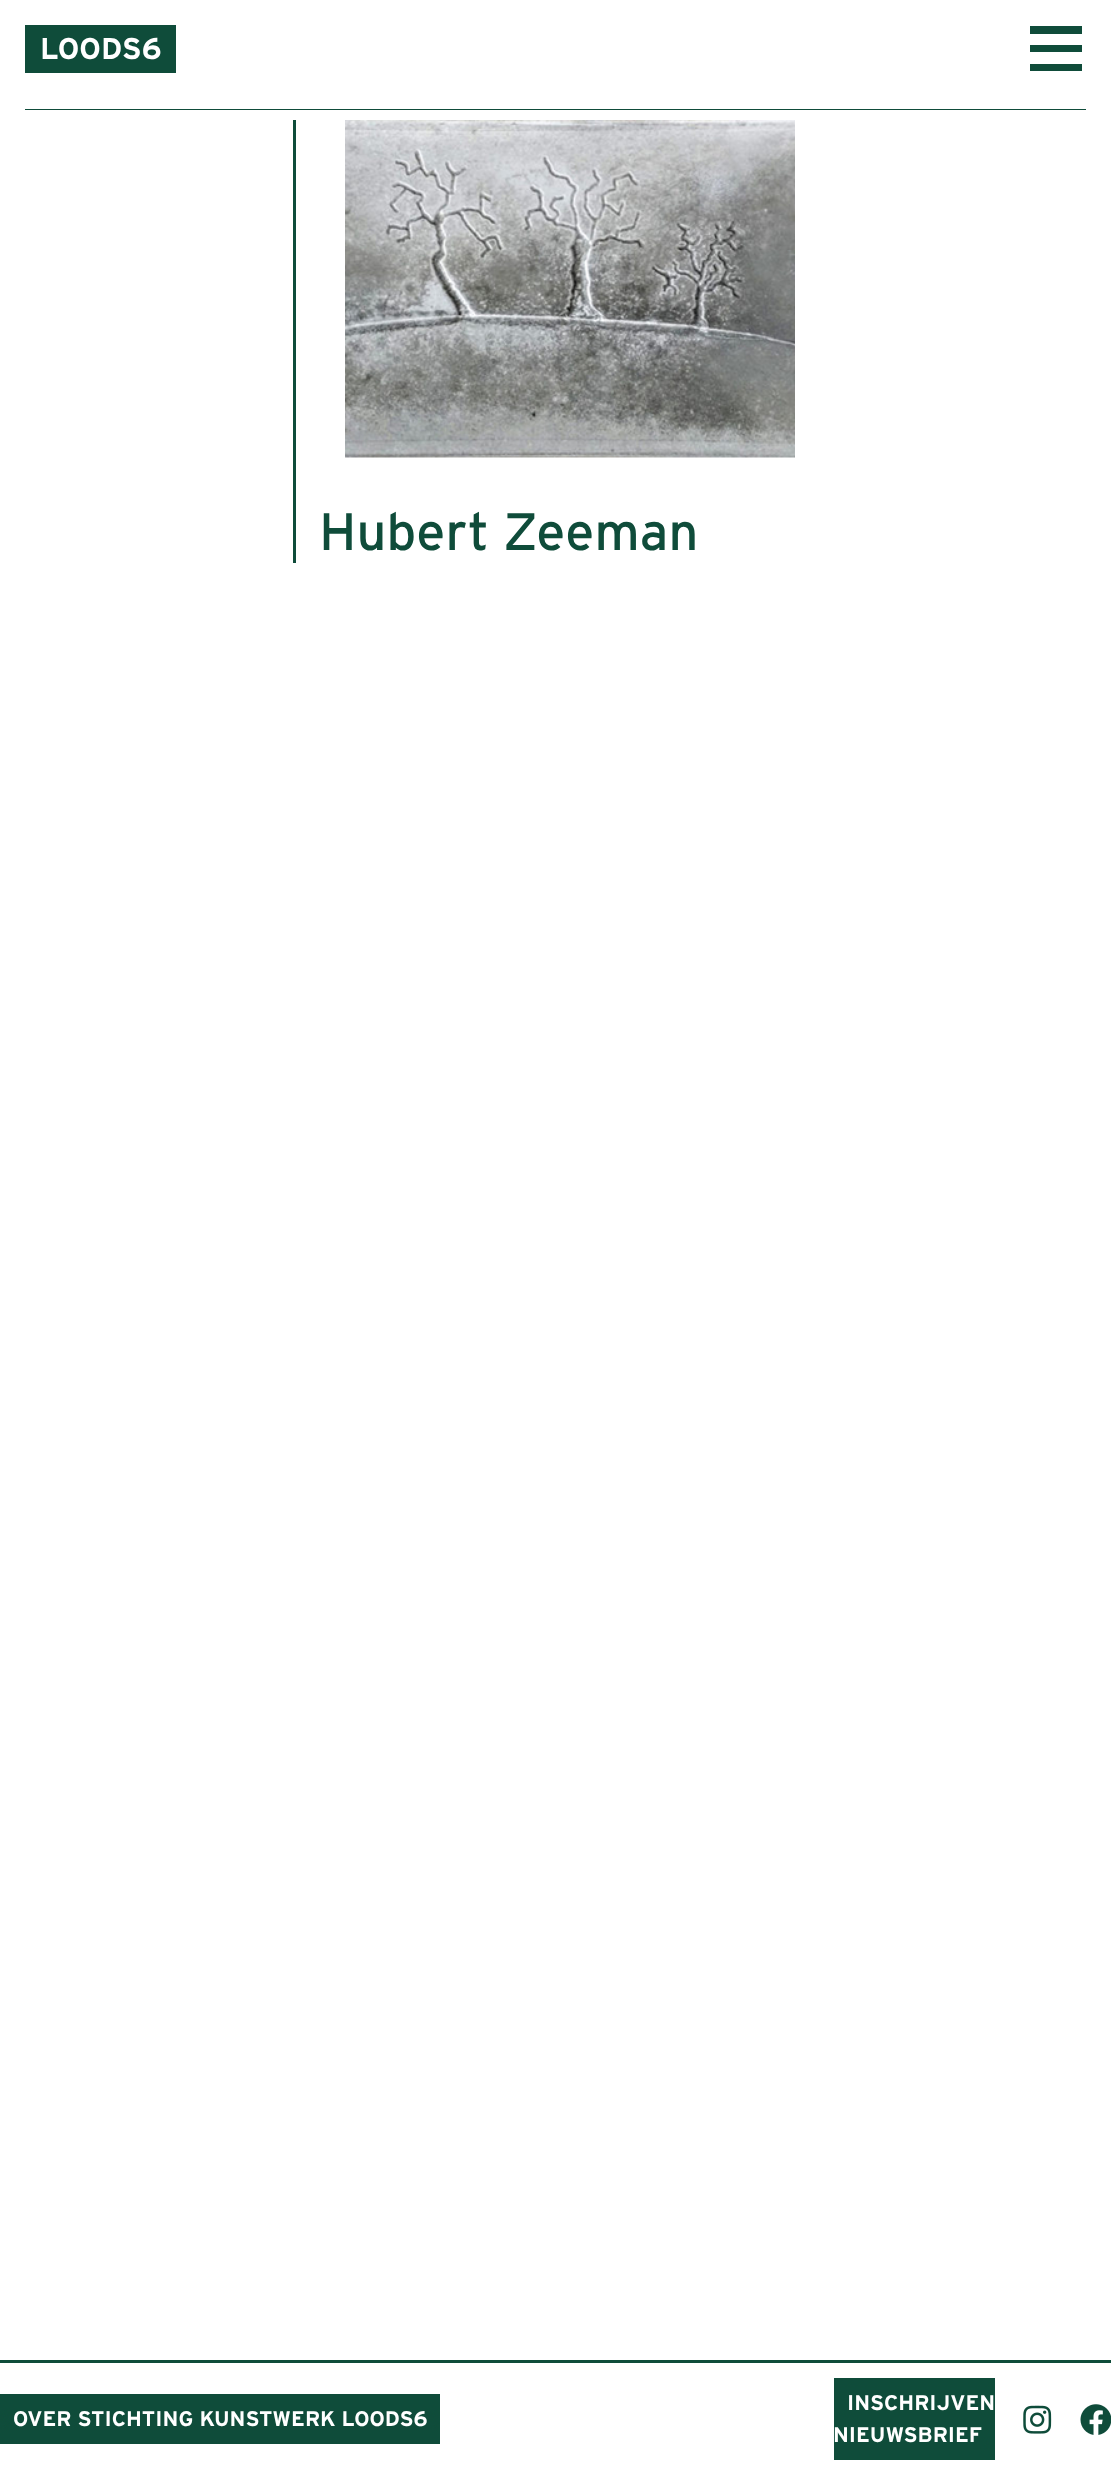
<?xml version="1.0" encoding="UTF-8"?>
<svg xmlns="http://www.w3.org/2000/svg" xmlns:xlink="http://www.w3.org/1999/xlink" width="1111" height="2476">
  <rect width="100%" height="100%" fill="#ffffff" />
  <rect x="25" y="109" width="1061" height="1" fill="#0f4c3a" />
  <rect x="25" y="25" width="151" height="48" fill="#0f4c3a" />
  <path d="M 1030 26 h 52 v 8 h -52 z m 0 19 h 52 v 7 h -52 z m 52 19 v 7 h -52 v -7 z" fill="#0f4c3a" />
  <rect x="293" y="120" width="3" height="443" fill="#0f4c3a" />
  <image x="345" y="120" width="450" height="338" xlink:href="image1.png" />
  <rect y="2360" width="1111" height="3" fill="#0f4c3a" />
  <rect y="2394" width="440" height="50" fill="#0f4c3a" />
  <rect x="834" y="2378" width="161" height="82" fill="#0f4c3a" />
  <image x="1023" y="2405" width="29" height="29" xlink:href="image2.png" />
  <image x="1080" y="2404" width="31" height="31" xlink:href="image3.png" />
  <text x="40" y="59" style="font-family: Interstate; font-size: 30px; font-weight: bold; fill: #ffffff">LOODS6</text>
  <text x="319" y="550" style="font-family: Interstate; font-size: 52.5px; fill: #0f4c3a">Hubert Zeeman</text>
  <text x="13" y="2426" style="font-family: Interstate; font-size: 21.25px; font-weight: bold; fill: #ffffff">OVER STICHTING KUNSTWERK LOODS6</text>
  <text x="847" y="2410" style="font-family: Interstate; font-size: 21.25px; font-weight: bold; fill: #ffffff">INSCHRIJVEN</text>
  <text x="833" y="2442" style="font-family: Interstate; font-size: 21.25px; font-weight: bold; fill: #ffffff">NIEUWSBRIEF</text>
</svg>
